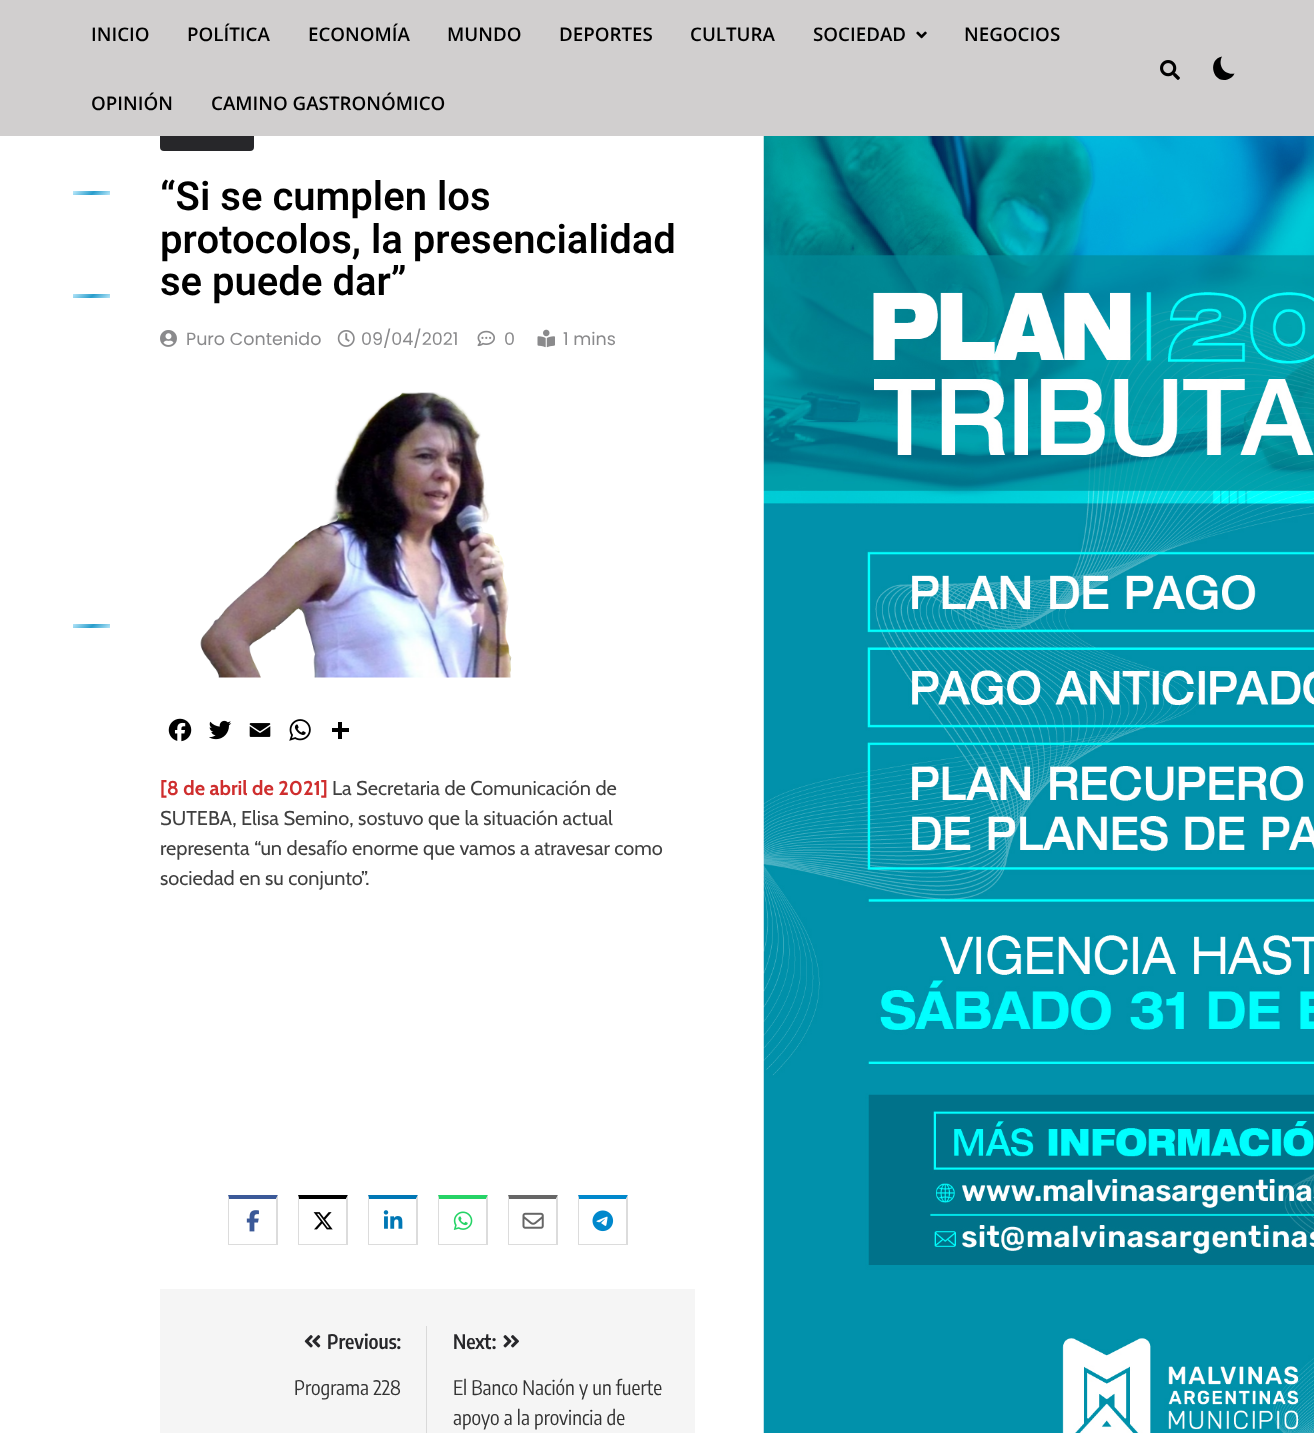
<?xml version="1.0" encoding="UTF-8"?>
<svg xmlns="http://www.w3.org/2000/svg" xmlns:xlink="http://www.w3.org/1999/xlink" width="1314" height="1433">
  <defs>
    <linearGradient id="g1" gradientUnits="userSpaceOnUse" x1="81" y1="183" x2="102" y2="203"><stop offset="0.02" stop-color="#b6e6f9" /><stop offset="0.53" stop-color="#289dcc" /><stop offset="1" stop-color="#b6e6f9" /></linearGradient>
    <linearGradient id="g2" gradientUnits="userSpaceOnUse" x1="81" y1="285" x2="102" y2="306"><stop offset="0.02" stop-color="#b6e6f9" /><stop offset="0.53" stop-color="#289dcc" /><stop offset="1" stop-color="#b6e6f9" /></linearGradient>
    <linearGradient id="g3" gradientUnits="userSpaceOnUse" x1="81" y1="615" x2="102" y2="636"><stop offset="0.02" stop-color="#b6e6f9" /><stop offset="0.53" stop-color="#289dcc" /><stop offset="1" stop-color="#b6e6f9" /></linearGradient>
  </defs>
  <rect width="100%" height="100%" fill="#ffffff" />
  <rect x="160" y="119" width="94" height="32" rx="4" fill="#27272a" />
  <rect width="1314" height="136" fill="#d1cfcf" />
  <image x="916" y="31" width="11" height="8" xlink:href="image1.png" />
  <image x="1160" y="60" width="20" height="20" xlink:href="image2.png" />
  <path d="M 1234.5 73.5 c -10 2 -17 -8 -12.5 -17 c -15 3 -9.5 27.5 5.5 23 c 3 -1 6 -3 7 -6 z" fill="#000000" />
  <rect x="73" y="191" width="37" height="4" fill="url(#g1)" />
  <rect x="73" y="294" width="37" height="4" fill="url(#g2)" />
  <rect x="73" y="624" width="37" height="4" fill="url(#g3)" />
  <image x="160" y="330" width="17" height="17" xlink:href="image3.png" />
  <image x="337" y="330" width="18" height="17" xlink:href="image4.png" />
  <image x="477" y="330" width="18" height="17" xlink:href="image5.png" />
  <image x="537" y="329" width="18" height="19" xlink:href="image6.png" />
  <image x="200" y="392" width="312" height="286" xlink:href="image7.png" />
  <image x="168" y="718" width="24" height="24" xlink:href="image8.png" />
  <image x="209" y="720" width="23" height="20" xlink:href="image9.png" />
  <image x="249" y="723" width="22" height="14" xlink:href="image10.png" />
  <image x="289" y="719" width="22" height="22" xlink:href="image11.png" />
  <rect x="338" y="722" width="4" height="17" fill="#000000" />
  <rect x="332" y="728" width="17" height="4" fill="#000000" />
  <path d="M 228 1195 h 50 l -2 4 h -47 z" fill="#3b5998" />
  <path d="M 278 1195 v 50 l -2 -1 v -45 z" fill="#dcdcdc" />
  <rect x="228" y="1244" width="50" height="1" fill="#dcdcdc" />
  <path d="M 228 1245 v -50 l 1 4 v 45 z" fill="#dcdcdc" />
  <image x="246" y="1210" width="13" height="22" xlink:href="image12.png" />
  <path d="M 298 1195 h 50 l -2 4 h -47 z" fill="#000000" />
  <path d="M 348 1195 v 50 l -2 -1 v -45 z" fill="#dcdcdc" />
  <rect x="298" y="1244" width="50" height="1" fill="#dcdcdc" />
  <path d="M 298 1245 v -50 l 1 4 v 45 z" fill="#dcdcdc" />
  <image x="313" y="1212" width="20" height="18" xlink:href="image13.png" />
  <path d="M 368 1195 h 50 l -2 4 h -47 z" fill="#0077b5" />
  <path d="M 418 1195 v 50 l -2 -1 v -45 z" fill="#dcdcdc" />
  <rect x="368" y="1244" width="50" height="1" fill="#dcdcdc" />
  <path d="M 368 1245 v -50 l 1 4 v 45 z" fill="#dcdcdc" />
  <image x="383" y="1210" width="20" height="19" xlink:href="image14.png" />
  <path d="M 438 1195 h 50 l -2 4 h -47 z" fill="#25d366" />
  <path d="M 488 1195 v 50 l -2 -1 v -45 z" fill="#dcdcdc" />
  <rect x="438" y="1244" width="50" height="1" fill="#dcdcdc" />
  <path d="M 438 1245 v -50 l 1 4 v 45 z" fill="#dcdcdc" />
  <image x="453" y="1211" width="20" height="19" xlink:href="image15.png" />
  <path d="M 508 1195 h 50 l -2 4 h -47 z" fill="#666666" />
  <path d="M 558 1195 v 50 l -2 -1 v -45 z" fill="#dcdcdc" />
  <rect x="508" y="1244" width="50" height="1" fill="#dcdcdc" />
  <path d="M 508 1245 v -50 l 1 4 v 45 z" fill="#dcdcdc" />
  <image x="522" y="1212" width="22" height="17" xlink:href="image16.png" />
  <path d="M 578 1195 h 50 l -2 4 h -47 z" fill="#0088cc" />
  <path d="M 628 1195 v 50 l -2 -1 v -45 z" fill="#dcdcdc" />
  <rect x="578" y="1244" width="50" height="1" fill="#dcdcdc" />
  <path d="M 578 1245 v -50 l 1 4 v 45 z" fill="#dcdcdc" />
  <image x="592" y="1210" width="22" height="22" xlink:href="image17.png" />
  <rect x="160" y="1289" width="535" height="144" fill="#f5f5f5" />
  <rect x="426" y="1326" width="1" height="107" fill="#d9d9d9" />
  <image x="304" y="1335" width="17" height="13" xlink:href="image18.png" />
  <image x="503" y="1335" width="16" height="13" xlink:href="image19.png" />
  <image x="763" y="136" width="551" height="1297" xlink:href="image20.png" />
  <text x="91" y="41" style="font-family: Open Sans; font-size: 18.75px; font-weight: 600; fill: #000000">INICIO</text>
  <text x="187" y="41" style="font-family: Open Sans; font-size: 18.75px; font-weight: 600; fill: #000000">POLÍTICA</text>
  <text x="308" y="41" style="font-family: Open Sans; font-size: 18.75px; font-weight: 600; fill: #000000">ECONOMÍA</text>
  <text x="447" y="41" style="font-family: Open Sans; font-size: 18.75px; font-weight: 600; fill: #000000">MUNDO</text>
  <text x="559" y="41" style="font-family: Open Sans; font-size: 18.75px; font-weight: 600; fill: #000000">DEPORTES</text>
  <text x="690" y="41" style="font-family: Open Sans; font-size: 18.75px; font-weight: 600; fill: #000000">CULTURA</text>
  <text x="813" y="41" style="font-family: Open Sans; font-size: 18.75px; font-weight: 600; fill: #000000">SOCIEDAD</text>
  <text x="964" y="41" style="font-family: Open Sans; font-size: 18.75px; font-weight: 600; fill: #000000">NEGOCIOS</text>
  <text x="91" y="110" style="font-family: Open Sans; font-size: 18.75px; font-weight: 600; fill: #000000">OPINIÓN</text>
  <text x="211" y="110" style="font-family: Open Sans; font-size: 18.75px; font-weight: 600; fill: #000000">CAMINO GASTRONÓMICO</text>
  <text x="160" y="210" style="font-family: Heebo; font-size: 40px; font-weight: 600; fill: #000000">“Si se cumplen los</text>
  <text x="160" y="253" style="font-family: Heebo; font-size: 40px; font-weight: 600; fill: #000000">protocolos, la presencialidad</text>
  <text x="160" y="295" style="font-family: Heebo; font-size: 40px; font-weight: 600; fill: #000000">se puede dar”</text>
  <text x="186" y="345" style="font-family: Poppins; font-size: 17.5px; fill: #8a8a8c">Puro Contenido</text>
  <text x="361" y="345" style="font-family: Poppins; font-size: 17.5px; fill: #8a8a8c">09/04/2021</text>
  <text x="504" y="345" style="font-family: Poppins; font-size: 17.5px; fill: #8a8a8c">0</text>
  <text x="563" y="345" style="font-family: Poppins; font-size: 17.5px; fill: #8a8a8c">1 mins</text>
  <text x="160" y="795" style="font-family: Cabin; font-size: 20px; font-weight: bold; fill: #cf2e2e">[8 de abril de 2021]</text>
  <text x="332" y="795" style="font-family: Cabin; font-size: 20px; fill: #404040">La Secretaria de Comunicación de</text>
  <text x="160" y="825" style="font-family: Cabin; font-size: 20px; fill: #404040">SUTEBA, Elisa Semino, sostuvo que la situación actual</text>
  <text x="160" y="855" style="font-family: Cabin; font-size: 20px; fill: #404040">representa “un desafío enorme que vamos a atravesar como</text>
  <text x="160" y="885" style="font-family: Cabin; font-size: 20px; fill: #404040">sociedad en su conjunto”.</text>
  <text x="327" y="1349" style="font-family: Encode Sans Condensed; font-size: 20px; font-weight: 600; fill: #27272a">Previous:</text>
  <text x="294" y="1395" style="font-family: Encode Sans Condensed; font-size: 20px; fill: #333333">Programa 228</text>
  <text x="453" y="1349" style="font-family: Encode Sans Condensed; font-size: 20px; font-weight: 600; fill: #27272a">Next:</text>
  <text x="453" y="1395" style="font-family: Encode Sans Condensed; font-size: 20px; fill: #333333">El Banco Nación y un fuerte</text>
  <text x="453" y="1425" style="font-family: Encode Sans Condensed; font-size: 20px; fill: #333333">apoyo a la provincia de</text>
</svg>
